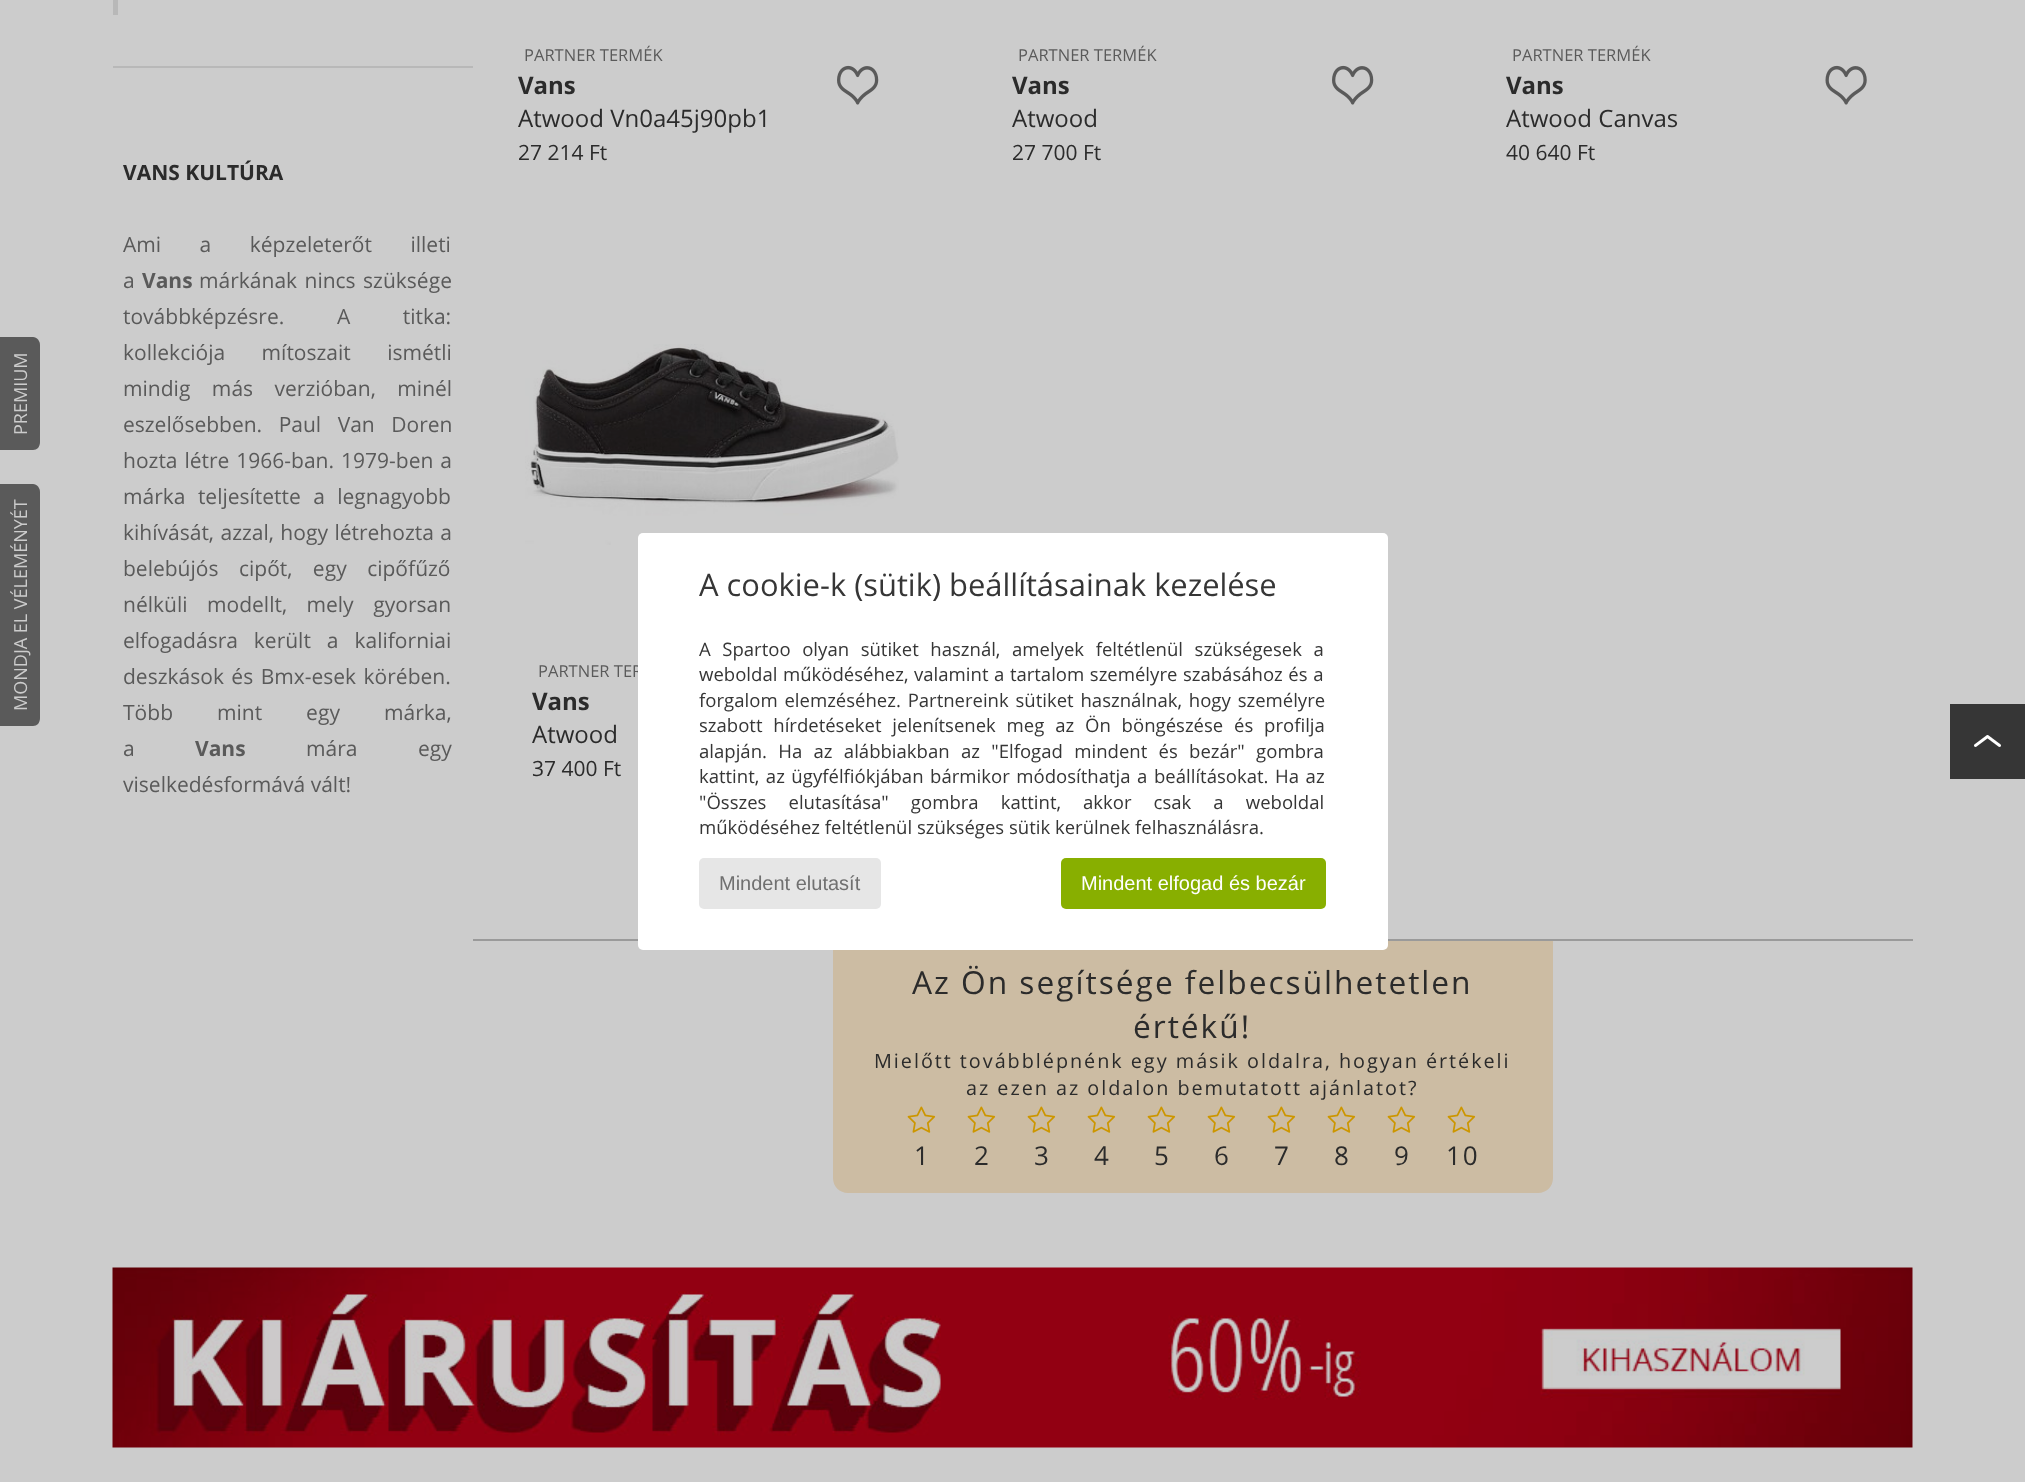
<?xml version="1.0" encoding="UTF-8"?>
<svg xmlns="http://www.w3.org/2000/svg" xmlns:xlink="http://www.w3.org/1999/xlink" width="2025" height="1482">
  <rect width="100%" height="100%" fill="#cccccc" />
  <path d="M 0 450 v -113 h 33 c 4 0 7 4 7 8 v 97 c 0 5 -3 8 -7 8 z" fill="#5a5a5a" />
  <path d="M 0 726 v -242 h 33 c 4 0 7 4 7 8 v 226 c 0 5 -3 8 -7 8 z" fill="#5a5a5a" />
  <rect x="113" width="5" height="15" fill="#b8b8b8" />
  <rect x="113" y="66" width="360" height="2" fill="#b8b8b8" />
  <image x="837" y="65" width="42" height="40" xlink:href="image1.png" />
  <image x="1332" y="65" width="42" height="40" xlink:href="image1.png" />
  <image x="1825" y="65" width="42" height="40" xlink:href="image2.png" />
  <image x="525" y="344" width="374" height="201" xlink:href="image3.png" />
  <rect x="473" y="939" width="1440" height="2" fill="#9a9a9a" />
  <path d="M 833 941 h 720 v 237 c 0 8.5 -6.5 15 -15 15 h -690 c -8.5 0 -15 -6.5 -15 -15 z" fill="#ccbca3" />
  <image x="907" y="1106" width="29" height="27" xlink:href="image4.png" />
  <image x="967" y="1106" width="29" height="27" xlink:href="image4.png" />
  <image x="1027" y="1106" width="29" height="27" xlink:href="image4.png" />
  <image x="1087" y="1106" width="29" height="27" xlink:href="image4.png" />
  <image x="1147" y="1106" width="29" height="27" xlink:href="image4.png" />
  <image x="1207" y="1106" width="29" height="27" xlink:href="image4.png" />
  <image x="1267" y="1106" width="29" height="27" xlink:href="image4.png" />
  <image x="1327" y="1106" width="29" height="27" xlink:href="image4.png" />
  <image x="1387" y="1106" width="29" height="27" xlink:href="image4.png" />
  <image x="1447" y="1106" width="29" height="27" xlink:href="image4.png" />
  <rect x="1950" y="704" width="75" height="75" fill="#363636" />
  <image x="1974" y="735" width="27" height="12" xlink:href="image5.png" />
  <image x="112" y="1267" width="1801" height="181" xlink:href="image6.png" />
  <text x="27" y="435" transform="rotate(-90 27 435)" style="font-family: Open Sans; font-size: 18px; fill: #cccccc">PREMIUM</text>
  <text x="27" y="711" transform="rotate(-90 27 711)" style="font-family: Open Sans; font-size: 18px; fill: #cccccc">MONDJA EL VÉLEMÉNYÉT</text>
  <text x="123" y="180" style="font-family: Open Sans; font-size: 21px; font-weight: bold; fill: #2b2b2b">VANS KULTÚRA</text>
  <text x="123" y="252" word-spacing="33" style="font-family: Open Sans; font-size: 21px; fill: #5a5a5a">Ami a képzeleterőt illeti</text>
  <text x="123" y="288" style="font-family: Open Sans; font-size: 21px; fill: #5a5a5a">a</text>
  <text x="142" y="288" style="font-family: Open Sans; font-size: 21px; font-weight: bold; fill: #5a5a5a">Vans</text>
  <text x="199" y="288" word-spacing="2" style="font-family: Open Sans; font-size: 21px; fill: #5a5a5a">márkának nincs szüksége</text>
  <text x="123" y="324" style="font-family: Open Sans; font-size: 21px; fill: #5a5a5a">továbbképzésre.</text>
  <text x="337" y="324" word-spacing="47" style="font-family: Open Sans; font-size: 21px; fill: #5a5a5a">A titka:</text>
  <text x="123" y="360" word-spacing="31" style="font-family: Open Sans; font-size: 21px; fill: #5a5a5a">kollekciója mítoszait ismétli</text>
  <text x="123" y="396" word-spacing="16" style="font-family: Open Sans; font-size: 21px; fill: #5a5a5a">mindig más verzióban, minél</text>
  <text x="123" y="432" word-spacing="11" style="font-family: Open Sans; font-size: 21px; fill: #5a5a5a">eszelősebben. Paul Van Doren</text>
  <text x="123" y="468" word-spacing="1.5" style="font-family: Open Sans; font-size: 21px; fill: #5a5a5a">hozta létre 1966-ban. 1979-ben a</text>
  <text x="123" y="504" word-spacing="7" style="font-family: Open Sans; font-size: 21px; fill: #5a5a5a">márka teljesítette a legnagyobb</text>
  <text x="123" y="540" word-spacing="1" style="font-family: Open Sans; font-size: 21px; fill: #5a5a5a">kihívását, azzal, hogy létrehozta a</text>
  <text x="123" y="576" word-spacing="15" style="font-family: Open Sans; font-size: 21px; fill: #5a5a5a">belebújós cipőt, egy cipőfűző</text>
  <text x="123" y="612" word-spacing="14" style="font-family: Open Sans; font-size: 21px; fill: #5a5a5a">nélküli modellt, mely gyorsan</text>
  <text x="123" y="648" word-spacing="10.5" style="font-family: Open Sans; font-size: 21px; fill: #5a5a5a">elfogadásra került a kaliforniai</text>
  <text x="123" y="684" word-spacing="2" style="font-family: Open Sans; font-size: 21px; fill: #5a5a5a">deszkások és Bmx-esek körében.</text>
  <text x="123" y="720" word-spacing="38.5" style="font-family: Open Sans; font-size: 21px; fill: #5a5a5a">Több mint egy márka,</text>
  <text x="123" y="756" style="font-family: Open Sans; font-size: 21px; fill: #5a5a5a">a</text>
  <text x="195" y="756" style="font-family: Open Sans; font-size: 21px; font-weight: bold; fill: #5a5a5a">Vans</text>
  <text x="306" y="756" word-spacing="55" style="font-family: Open Sans; font-size: 21px; fill: #5a5a5a">mára egy</text>
  <text x="123" y="792" style="font-family: Open Sans; font-size: 21px; fill: #5a5a5a">viselkedésformává vált!</text>
  <text x="524" y="61" style="font-family: Open Sans; font-size: 16.5px; fill: #5a5a5a">PARTNER TERMÉK</text>
  <text x="518" y="94" style="font-family: Open Sans; font-size: 24px; font-weight: bold; fill: #2b2b2b">Vans</text>
  <text x="518" y="127" style="font-family: Open Sans; font-size: 24px; fill: #2b2b2b">Atwood Vn0a45j90pb1</text>
  <text x="518" y="160" style="font-family: Open Sans; font-size: 21px; fill: #2b2b2b">27 214 Ft</text>
  <text x="1018" y="61" style="font-family: Open Sans; font-size: 16.5px; fill: #5a5a5a">PARTNER TERMÉK</text>
  <text x="1012" y="94" style="font-family: Open Sans; font-size: 24px; font-weight: bold; fill: #2b2b2b">Vans</text>
  <text x="1012" y="127" style="font-family: Open Sans; font-size: 24px; fill: #2b2b2b">Atwood</text>
  <text x="1012" y="160" style="font-family: Open Sans; font-size: 21px; fill: #2b2b2b">27 700 Ft</text>
  <text x="1512" y="61" style="font-family: Open Sans; font-size: 16.5px; fill: #5a5a5a">PARTNER TERMÉK</text>
  <text x="1506" y="94" style="font-family: Open Sans; font-size: 24px; font-weight: bold; fill: #2b2b2b">Vans</text>
  <text x="1506" y="127" style="font-family: Open Sans; font-size: 24px; fill: #2b2b2b">Atwood Canvas</text>
  <text x="1506" y="160" style="font-family: Open Sans; font-size: 21px; fill: #2b2b2b">40 640 Ft</text>
  <text x="538" y="677" style="font-family: Open Sans; font-size: 16.5px; fill: #5a5a5a">PARTNER TER</text>
  <text x="532" y="710" style="font-family: Open Sans; font-size: 24px; font-weight: bold; fill: #2b2b2b">Vans</text>
  <text x="532" y="743" style="font-family: Open Sans; font-size: 24px; fill: #2b2b2b">Atwood</text>
  <text x="532" y="776" style="font-family: Open Sans; font-size: 21px; fill: #2b2b2b">37 400 Ft</text>
  <text x="912" y="994" style="font-family: Open Sans; font-size: 31.7px; letter-spacing: 1.98px; fill: #2b2b2b">Az Ön segítsége felbecsülhetetlen</text>
  <text x="1133" y="1038" style="font-family: Open Sans; font-size: 31.7px; letter-spacing: 1.98px; fill: #2b2b2b">értékű!</text>
  <text x="874" y="1068" style="font-family: Open Sans; font-size: 19.8px; letter-spacing: 1.98px; fill: #2b2b2b">Mielőtt továbblépnénk egy másik oldalra, hogyan értékeli</text>
  <text x="966" y="1095" style="font-family: Open Sans; font-size: 19.8px; letter-spacing: 1.98px; fill: #2b2b2b">az ezen az oldalon bemutatott ajánlatot?</text>
  <text x="914" y="1165" style="font-family: Open Sans; font-size: 26px; letter-spacing: 1.98px; fill: #2b2b2b">1</text>
  <text x="974" y="1165" style="font-family: Open Sans; font-size: 26px; letter-spacing: 1.98px; fill: #2b2b2b">2</text>
  <text x="1034" y="1165" style="font-family: Open Sans; font-size: 26px; letter-spacing: 1.98px; fill: #2b2b2b">3</text>
  <text x="1094" y="1165" style="font-family: Open Sans; font-size: 26px; letter-spacing: 1.98px; fill: #2b2b2b">4</text>
  <text x="1154" y="1165" style="font-family: Open Sans; font-size: 26px; letter-spacing: 1.98px; fill: #2b2b2b">5</text>
  <text x="1214" y="1165" style="font-family: Open Sans; font-size: 26px; letter-spacing: 1.98px; fill: #2b2b2b">6</text>
  <text x="1274" y="1165" style="font-family: Open Sans; font-size: 26px; letter-spacing: 1.98px; fill: #2b2b2b">7</text>
  <text x="1334" y="1165" style="font-family: Open Sans; font-size: 26px; letter-spacing: 1.98px; fill: #2b2b2b">8</text>
  <text x="1394" y="1165" style="font-family: Open Sans; font-size: 26px; letter-spacing: 1.98px; fill: #2b2b2b">9</text>
  <text x="1446" y="1165" style="font-family: Open Sans; font-size: 26px; letter-spacing: 1.98px; fill: #2b2b2b">10</text>
  <rect x="638" y="533" width="750" height="417" rx="5" fill="#ffffff" />
  <text x="699" y="596" style="font-family: Open Sans; font-size: 30.9px; fill: #363636">A cookie-k (sütik) beállításainak kezelése</text>
  <text x="699" y="656" word-spacing="6.75" style="font-family: Open Sans; font-size: 18.55px; fill: #363636">A Spartoo olyan sütiket használ, amelyek feltétlenül szükségesek a</text>
  <text x="699" y="681" word-spacing="0.75" style="font-family: Open Sans; font-size: 18.55px; fill: #363636">weboldal működéséhez, valamint a tartalom személyre szabásához és a</text>
  <text x="699" y="707" word-spacing="2" style="font-family: Open Sans; font-size: 18.55px; fill: #363636">forgalom elemzéséhez. Partnereink sütiket használnak, hogy személyre</text>
  <text x="699" y="732" word-spacing="6" style="font-family: Open Sans; font-size: 18.55px; fill: #363636">szabott hírdetéseket jelenítsenek meg az Ön böngészése és profilja</text>
  <text x="699" y="758" word-spacing="6.5" style="font-family: Open Sans; font-size: 18.55px; fill: #363636">alapján. Ha az alábbiakban az "Elfogad mindent és bezár" gombra</text>
  <text x="699" y="783" word-spacing="1.75" style="font-family: Open Sans; font-size: 18.55px; fill: #363636">kattint, az ügyfélfiókjában bármikor módosíthatja a beállításokat. Ha az</text>
  <text x="699" y="809" word-spacing="17.25" style="font-family: Open Sans; font-size: 18.55px; fill: #363636">"Összes elutasítása" gombra kattint, akkor csak a weboldal</text>
  <text x="699" y="834" style="font-family: Open Sans; font-size: 18.55px; fill: #363636">működéséhez feltétlenül szükséges sütik kerülnek felhasználásra.</text>
  <rect x="699" y="858" width="182" height="51" rx="5" fill="#e6e6e6" />
  <text x="719" y="890" style="font-family: Liberation Sans; font-size: 20px; fill: #707070">Mindent elutasít</text>
  <rect x="1061" y="858" width="265" height="51" rx="5" fill="#88af00" />
  <text x="1081" y="890" style="font-family: Liberation Sans; font-size: 20px; fill: #ffffff">Mindent elfogad és bezár</text>
</svg>
